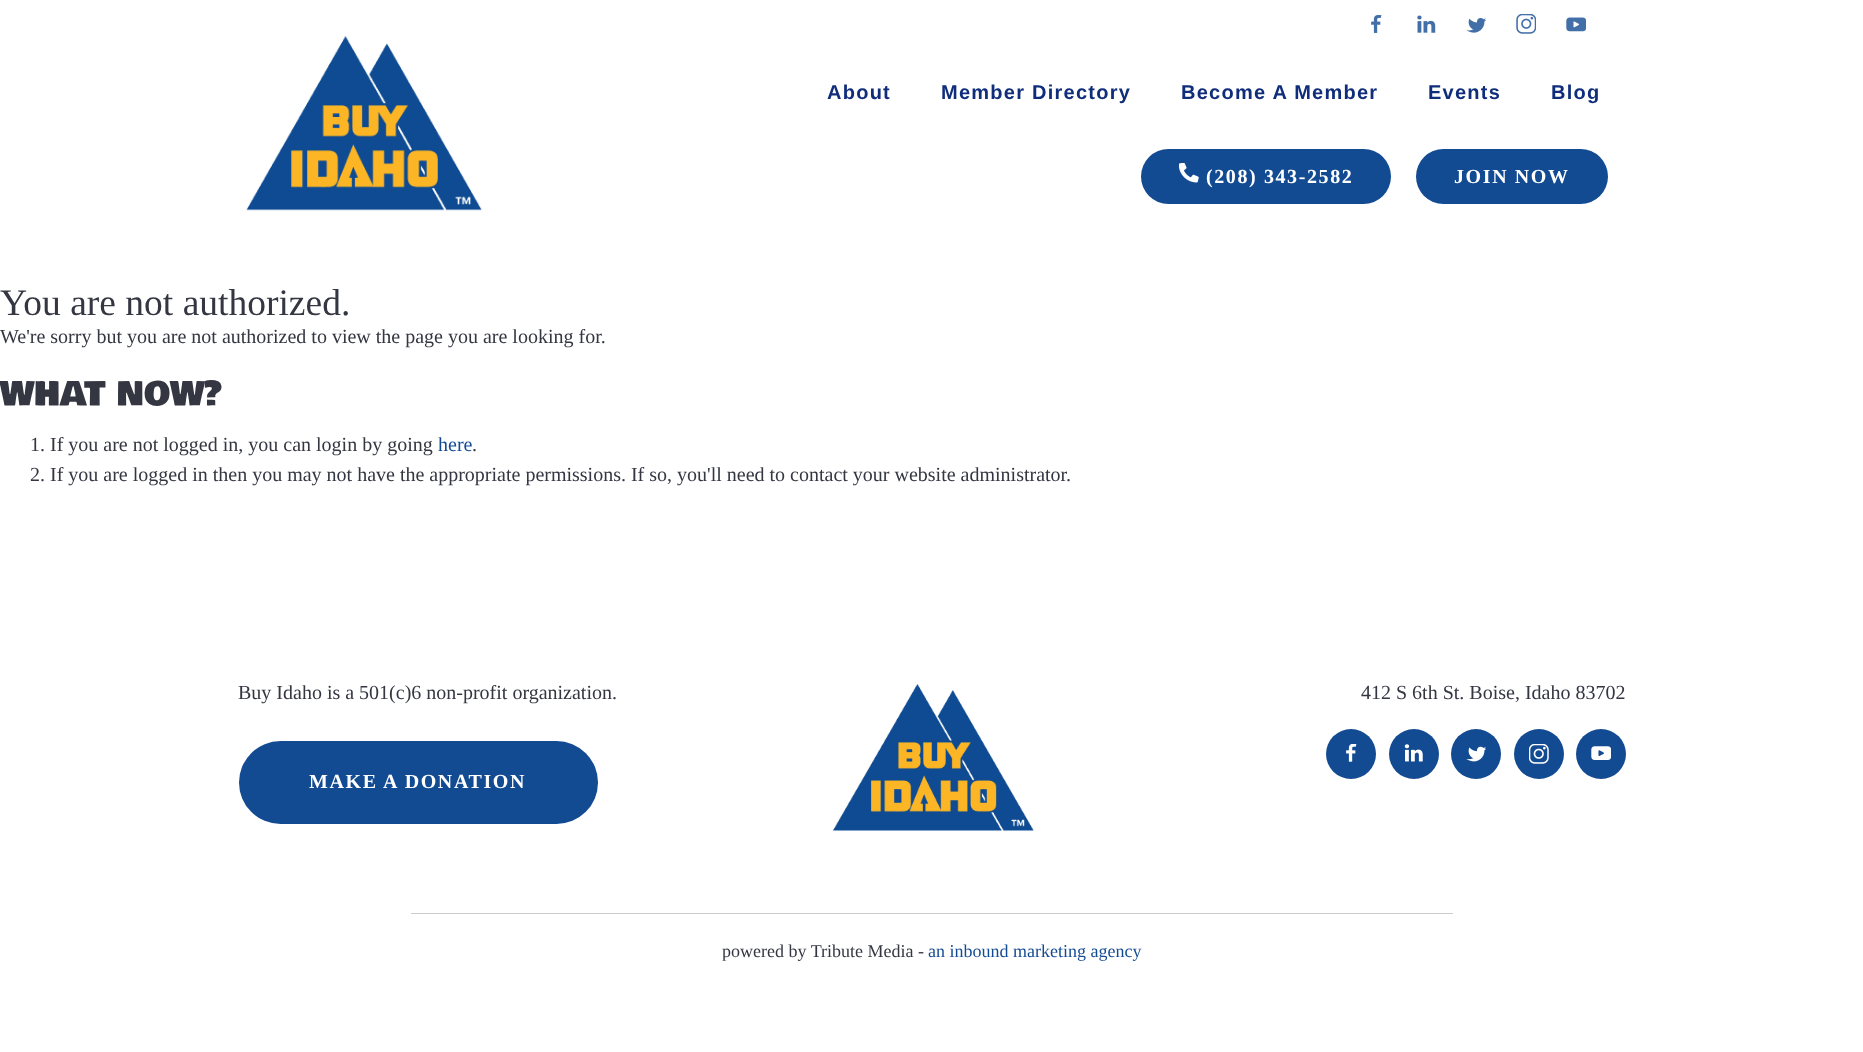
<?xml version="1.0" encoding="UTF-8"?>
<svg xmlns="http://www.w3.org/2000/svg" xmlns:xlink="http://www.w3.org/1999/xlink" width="1863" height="1052">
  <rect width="100%" height="100%" fill="#ffffff" />
  <image x="246" y="35" width="236" height="176" xlink:href="image1.png" />
  <image x="1371" y="15" width="11" height="18" xlink:href="image2.png" />
  <image x="1417" y="15" width="19" height="18" xlink:href="image3.png" />
  <image x="1466" y="18" width="20" height="15" xlink:href="image4.png" />
  <image x="1516" y="14" width="20" height="20" xlink:href="image5.png" />
  <image x="1566" y="17" width="20" height="15" xlink:href="image6.png" />
  <rect x="1141" y="149" width="250" height="55" rx="27.5" fill="#134b92" />
  <image x="1179" y="163" width="20" height="20" xlink:href="image7.png" />
  <rect x="1416" y="149" width="192" height="55" rx="27.5" fill="#134b92" />
  <rect x="239" y="741" width="359" height="83" rx="41.5" fill="#134b92" />
  <image x="832" y="683" width="202" height="148" xlink:href="image8.png" />
  <circle cx="1351" cy="754" r="25" fill="#134b92" />
  <image x="1346" y="744" width="11" height="18" xlink:href="image9.png" />
  <circle cx="1414" cy="754" r="25" fill="#134b92" />
  <image x="1404" y="744" width="19" height="18" xlink:href="image10.png" />
  <circle cx="1476" cy="754" r="25" fill="#134b92" />
  <image x="1466" y="746" width="20" height="16" xlink:href="image11.png" />
  <circle cx="1539" cy="754" r="25" fill="#134b92" />
  <image x="1529" y="744" width="20" height="20" xlink:href="image12.png" />
  <circle cx="1601" cy="754" r="25" fill="#134b92" />
  <image x="1591" y="746" width="20" height="14" xlink:href="image13.png" />
  <rect x="411" y="913" width="1042" height="1" fill="#cccccc" />
  <text x="827" y="99" style="font-family: Liberation Sans; font-size: 20px; font-weight: bold; letter-spacing: 1.25px; fill: #102d7b">About</text>
  <text x="941" y="99" style="font-family: Liberation Sans; font-size: 20px; font-weight: bold; letter-spacing: 1.25px; fill: #102d7b">Member Directory</text>
  <text x="1181" y="99" style="font-family: Liberation Sans; font-size: 20px; font-weight: bold; letter-spacing: 1.25px; fill: #102d7b">Become A Member</text>
  <text x="1428" y="99" style="font-family: Liberation Sans; font-size: 20px; font-weight: bold; letter-spacing: 1.25px; fill: #102d7b">Events</text>
  <text x="1551" y="99" style="font-family: Liberation Sans; font-size: 20px; font-weight: bold; letter-spacing: 1.25px; fill: #102d7b">Blog</text>
  <text x="1206" y="183" style="font-family: Liberation Serif; font-size: 20px; font-weight: bold; letter-spacing: 1.6px; fill: #ffffff">(208) 343-2582</text>
  <text x="1454" y="183" style="font-family: Liberation Serif; font-size: 20px; font-weight: bold; letter-spacing: 1.6px; fill: #ffffff">JOIN NOW</text>
  <text x="0" y="315" style="font-family: Liberation Serif; font-size: 37.5px; fill: #343642">You are not authorized.</text>
  <text x="0" y="343" style="font-family: Liberation Serif; font-size: 20px; fill: #343642">We're sorry but you are not authorized to view the page you are looking for.</text>
  <text x="0" y="405" style="font-family: Bowlby One; font-size: 32.5px; fill: #343642">WHAT NOW?</text>
  <text x="30" y="451" style="font-family: Liberation Serif; font-size: 20px; fill: #343642">1. If you are not logged in, you can login by going</text>
  <text x="438" y="451" style="font-family: Liberation Serif; font-size: 20px; fill: #134b92">here</text>
  <text x="472" y="451" style="font-family: Liberation Serif; font-size: 20px; fill: #343642">.</text>
  <text x="30" y="481" style="font-family: Liberation Serif; font-size: 20px; fill: #343642">2. If you are logged in then you may not have the appropriate permissions. If so, you'll need to contact your website administrator.</text>
  <text x="238" y="699" style="font-family: Liberation Serif; font-size: 20px; fill: #343642">Buy Idaho is a 501(c)6 non-profit organization.</text>
  <text x="309" y="788" style="font-family: Liberation Serif; font-size: 20px; font-weight: bold; letter-spacing: 1.6px; fill: #ffffff">MAKE A DONATION</text>
  <text x="1361" y="699" style="font-family: Liberation Serif; font-size: 20px; fill: #343642">412 S 6th St. Boise, Idaho 83702</text>
  <text x="722" y="957" style="font-family: Liberation Serif; font-size: 18px; fill: #343642">powered by Tribute Media -</text>
  <text x="928" y="957" style="font-family: Liberation Serif; font-size: 18px; fill: #134b92">an inbound marketing agency</text>
</svg>
